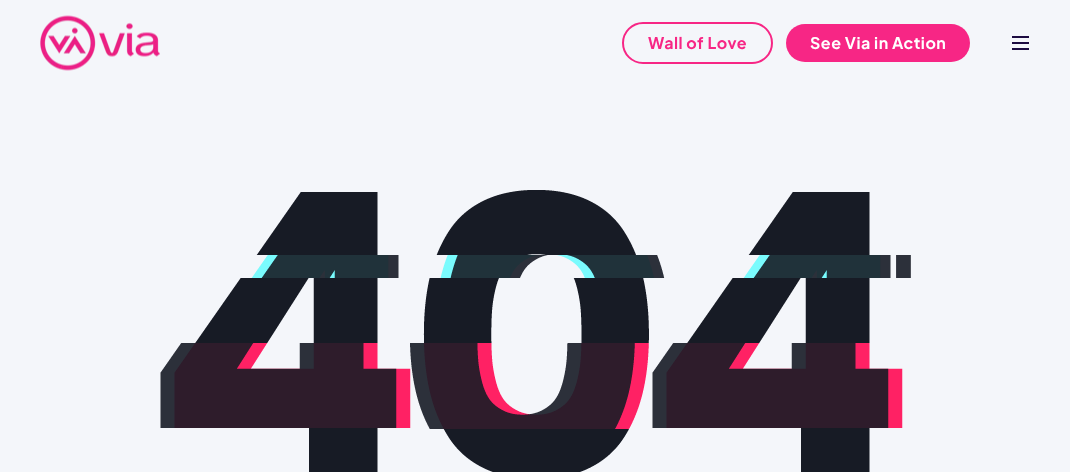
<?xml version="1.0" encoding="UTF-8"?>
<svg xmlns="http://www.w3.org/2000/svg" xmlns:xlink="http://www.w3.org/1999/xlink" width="1070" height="472">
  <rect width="100%" height="100%" fill="#f4f6fa" />
  <image x="40" y="15" width="120" height="56" xlink:href="image1.png" />
  <rect x="623" y="23" width="149" height="40" rx="20" fill="none" stroke="#f72685" stroke-width="2" />
  <rect x="786" y="24" width="184" height="38" rx="19" fill="#f72685" />
  <rect x="1012" y="36" width="17" height="2" fill="#1c0b41" />
  <rect x="1012" y="42" width="17" height="2" fill="#1c0b41" />
  <rect x="1012" y="48" width="17" height="2" fill="#1c0b41" />
  <image x="160" y="190" width="751" height="282" xlink:href="image2.png" />
  <text x="648" y="49" style="font-family: Plus Jakarta Sans; font-size: 16px; font-weight: bold; letter-spacing: 0.5px; fill: #f72685">Wall of Love</text>
  <text x="810" y="49" style="font-family: Plus Jakarta Sans; font-size: 16px; font-weight: bold; letter-spacing: 0.5px; fill: #ffffff">See Via in Action</text>
</svg>
